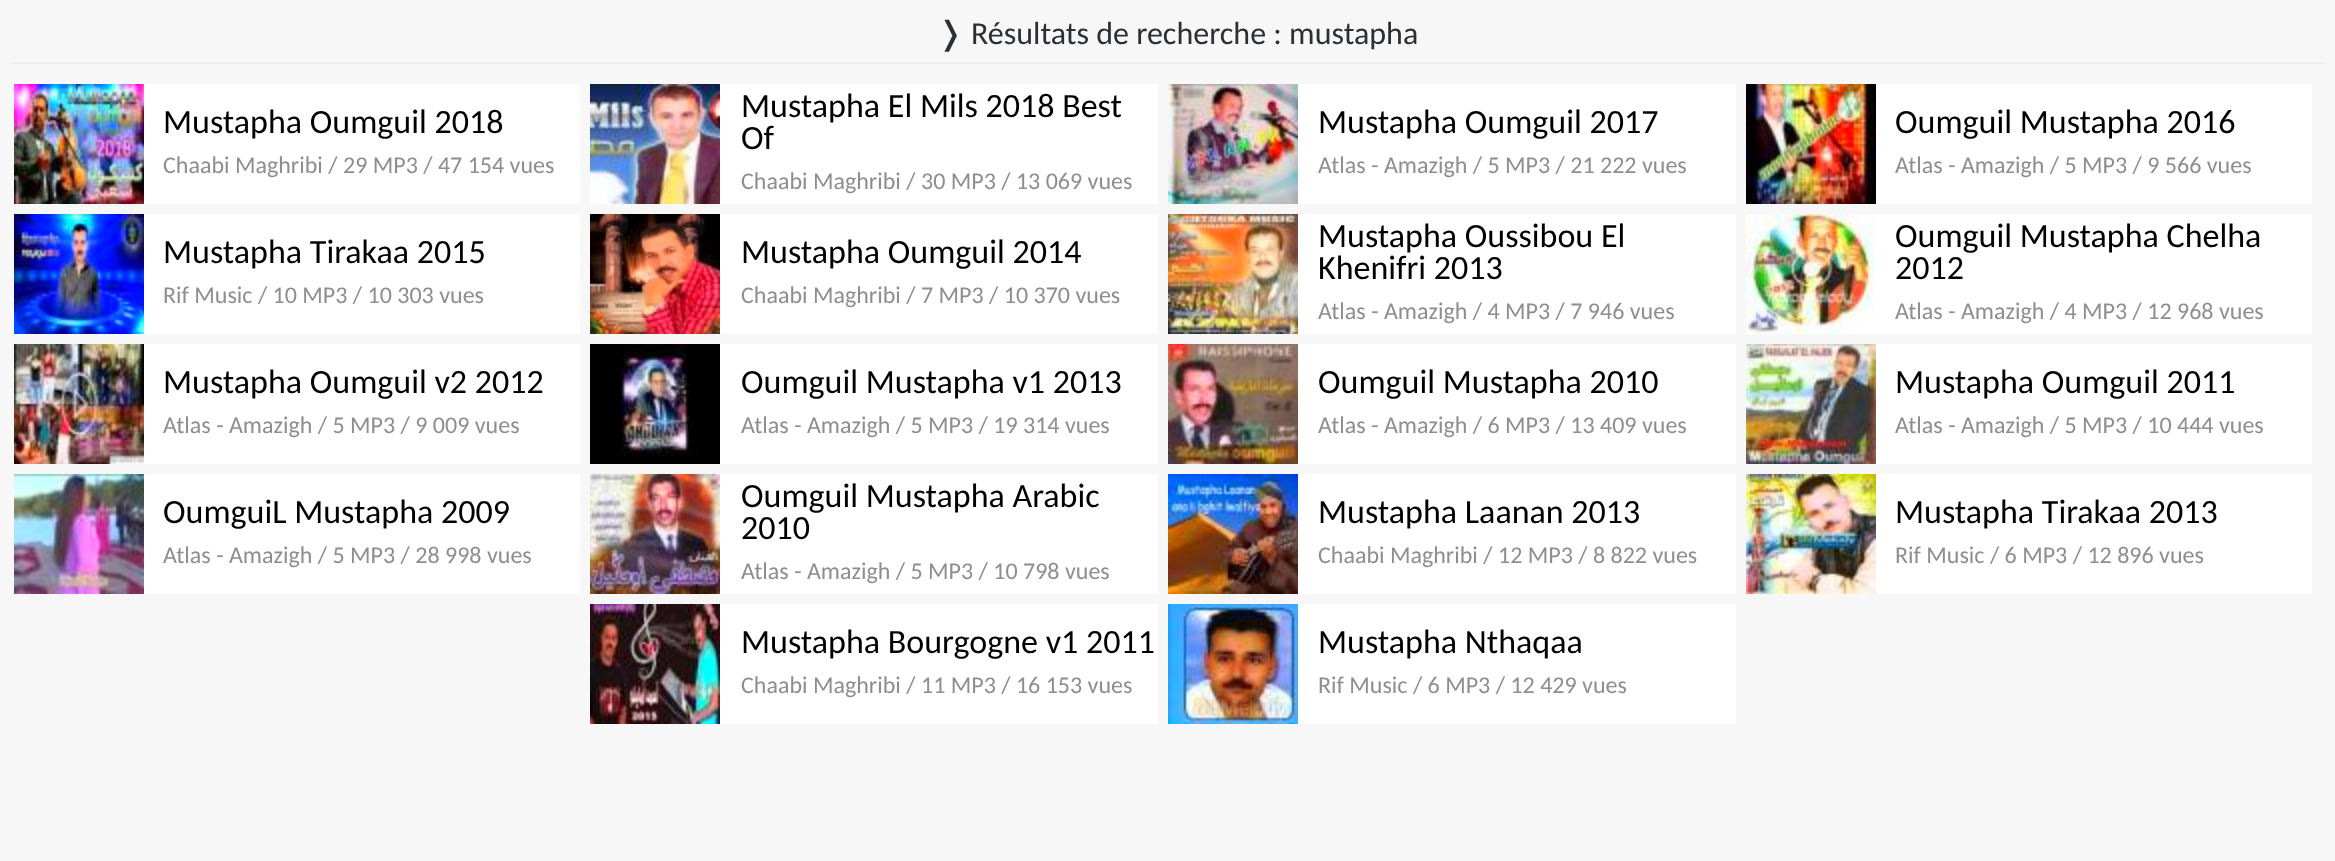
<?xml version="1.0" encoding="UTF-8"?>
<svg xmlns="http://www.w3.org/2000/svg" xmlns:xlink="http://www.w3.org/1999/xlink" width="2335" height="861">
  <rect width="100%" height="100%" fill="#f7f7f7" />
  <rect x="10" y="62" width="2316" height="2" fill="#eeeeee" />
  <rect x="144" y="84" width="436" height="120" fill="#ffffff" />
  <image x="14" y="84" width="130" height="120" xlink:href="image1.png" />
  <rect x="720" y="84" width="438" height="120" fill="#ffffff" />
  <image x="590" y="84" width="130" height="120" xlink:href="image2.png" />
  <rect x="1298" y="84" width="438" height="120" fill="#ffffff" />
  <image x="1168" y="84" width="130" height="120" xlink:href="image3.png" />
  <rect x="1876" y="84" width="436" height="120" fill="#ffffff" />
  <image x="1746" y="84" width="130" height="120" xlink:href="image4.png" />
  <rect x="144" y="214" width="436" height="120" fill="#ffffff" />
  <image x="14" y="214" width="130" height="120" xlink:href="image5.png" />
  <rect x="720" y="214" width="438" height="120" fill="#ffffff" />
  <image x="590" y="214" width="130" height="120" xlink:href="image6.png" />
  <rect x="1298" y="214" width="438" height="120" fill="#ffffff" />
  <image x="1168" y="214" width="130" height="120" xlink:href="image7.png" />
  <rect x="1875" y="214" width="437" height="120" fill="#ffffff" />
  <image x="1746" y="214" width="129" height="120" xlink:href="image8.png" />
  <rect x="144" y="344" width="436" height="120" fill="#ffffff" />
  <image x="14" y="344" width="130" height="120" xlink:href="image9.png" />
  <rect x="720" y="344" width="438" height="120" fill="#ffffff" />
  <image x="590" y="344" width="130" height="120" xlink:href="image10.png" />
  <rect x="1298" y="344" width="438" height="120" fill="#ffffff" />
  <image x="1168" y="344" width="130" height="120" xlink:href="image11.png" />
  <rect x="1876" y="344" width="436" height="120" fill="#ffffff" />
  <image x="1746" y="344" width="130" height="120" xlink:href="image12.png" />
  <rect x="144" y="474" width="436" height="120" fill="#ffffff" />
  <image x="14" y="474" width="130" height="120" xlink:href="image13.png" />
  <rect x="720" y="474" width="438" height="120" fill="#ffffff" />
  <image x="590" y="474" width="130" height="120" xlink:href="image14.png" />
  <rect x="1298" y="474" width="438" height="120" fill="#ffffff" />
  <image x="1168" y="474" width="130" height="120" xlink:href="image15.png" />
  <rect x="1876" y="474" width="436" height="120" fill="#ffffff" />
  <image x="1746" y="474" width="130" height="120" xlink:href="image16.png" />
  <rect x="720" y="604" width="438" height="120" fill="#ffffff" />
  <image x="590" y="604" width="130" height="120" xlink:href="image17.png" />
  <rect x="1298" y="604" width="438" height="120" fill="#ffffff" />
  <image x="1168" y="604" width="130" height="120" xlink:href="image18.png" />
  <text x="937" y="44" style="font-family: DejaVu Sans; font-size: 32px; fill: #2d3033">❭</text>
  <text x="971" y="44" style="font-family: Carlito; font-size: 32px; fill: #2d3033">Résultats de recherche : mustapha</text>
  <text x="163" y="133" style="font-family: Carlito; font-size: 34px; fill: #000000">Mustapha Oumguil 2018</text>
  <text x="163" y="173" style="font-family: Carlito; font-size: 24px; fill: #8e8e8e">Chaabi Maghribi / 29 MP3 / 47 154 vues</text>
  <text x="741" y="117" style="font-family: Carlito; font-size: 34px; fill: #000000">Mustapha El Mils 2018 Best</text>
  <text x="741" y="149" style="font-family: Carlito; font-size: 34px; fill: #000000">Of</text>
  <text x="741" y="189" style="font-family: Carlito; font-size: 24px; fill: #8e8e8e">Chaabi Maghribi / 30 MP3 / 13 069 vues</text>
  <text x="1318" y="133" style="font-family: Carlito; font-size: 34px; fill: #000000">Mustapha Oumguil 2017</text>
  <text x="1318" y="173" style="font-family: Carlito; font-size: 24px; fill: #8e8e8e">Atlas - Amazigh / 5 MP3 / 21 222 vues</text>
  <text x="1895" y="133" style="font-family: Carlito; font-size: 34px; fill: #000000">Oumguil Mustapha 2016</text>
  <text x="1895" y="173" style="font-family: Carlito; font-size: 24px; fill: #8e8e8e">Atlas - Amazigh / 5 MP3 / 9 566 vues</text>
  <text x="163" y="263" style="font-family: Carlito; font-size: 34px; fill: #000000">Mustapha Tirakaa 2015</text>
  <text x="163" y="303" style="font-family: Carlito; font-size: 24px; fill: #8e8e8e">Rif Music / 10 MP3 / 10 303 vues</text>
  <text x="741" y="263" style="font-family: Carlito; font-size: 34px; fill: #000000">Mustapha Oumguil 2014</text>
  <text x="741" y="303" style="font-family: Carlito; font-size: 24px; fill: #8e8e8e">Chaabi Maghribi / 7 MP3 / 10 370 vues</text>
  <text x="1318" y="247" style="font-family: Carlito; font-size: 34px; fill: #000000">Mustapha Oussibou El</text>
  <text x="1318" y="279" style="font-family: Carlito; font-size: 34px; fill: #000000">Khenifri 2013</text>
  <text x="1318" y="319" style="font-family: Carlito; font-size: 24px; fill: #8e8e8e">Atlas - Amazigh / 4 MP3 / 7 946 vues</text>
  <text x="1895" y="247" style="font-family: Carlito; font-size: 34px; fill: #000000">Oumguil Mustapha Chelha</text>
  <text x="1895" y="279" style="font-family: Carlito; font-size: 34px; fill: #000000">2012</text>
  <text x="1895" y="319" style="font-family: Carlito; font-size: 24px; fill: #8e8e8e">Atlas - Amazigh / 4 MP3 / 12 968 vues</text>
  <text x="163" y="393" style="font-family: Carlito; font-size: 34px; fill: #000000">Mustapha Oumguil v2 2012</text>
  <text x="163" y="433" style="font-family: Carlito; font-size: 24px; fill: #8e8e8e">Atlas - Amazigh / 5 MP3 / 9 009 vues</text>
  <text x="741" y="393" style="font-family: Carlito; font-size: 34px; fill: #000000">Oumguil Mustapha v1 2013</text>
  <text x="741" y="433" style="font-family: Carlito; font-size: 24px; fill: #8e8e8e">Atlas - Amazigh / 5 MP3 / 19 314 vues</text>
  <text x="1318" y="393" style="font-family: Carlito; font-size: 34px; fill: #000000">Oumguil Mustapha 2010</text>
  <text x="1318" y="433" style="font-family: Carlito; font-size: 24px; fill: #8e8e8e">Atlas - Amazigh / 6 MP3 / 13 409 vues</text>
  <text x="1895" y="393" style="font-family: Carlito; font-size: 34px; fill: #000000">Mustapha Oumguil 2011</text>
  <text x="1895" y="433" style="font-family: Carlito; font-size: 24px; fill: #8e8e8e">Atlas - Amazigh / 5 MP3 / 10 444 vues</text>
  <text x="163" y="523" style="font-family: Carlito; font-size: 34px; fill: #000000">OumguiL Mustapha 2009</text>
  <text x="163" y="563" style="font-family: Carlito; font-size: 24px; fill: #8e8e8e">Atlas - Amazigh / 5 MP3 / 28 998 vues</text>
  <text x="741" y="507" style="font-family: Carlito; font-size: 34px; fill: #000000">Oumguil Mustapha Arabic</text>
  <text x="741" y="539" style="font-family: Carlito; font-size: 34px; fill: #000000">2010</text>
  <text x="741" y="579" style="font-family: Carlito; font-size: 24px; fill: #8e8e8e">Atlas - Amazigh / 5 MP3 / 10 798 vues</text>
  <text x="1318" y="523" style="font-family: Carlito; font-size: 34px; fill: #000000">Mustapha Laanan 2013</text>
  <text x="1318" y="563" style="font-family: Carlito; font-size: 24px; fill: #8e8e8e">Chaabi Maghribi / 12 MP3 / 8 822 vues</text>
  <text x="1895" y="523" style="font-family: Carlito; font-size: 34px; fill: #000000">Mustapha Tirakaa 2013</text>
  <text x="1895" y="563" style="font-family: Carlito; font-size: 24px; fill: #8e8e8e">Rif Music / 6 MP3 / 12 896 vues</text>
  <text x="741" y="653" style="font-family: Carlito; font-size: 34px; fill: #000000">Mustapha Bourgogne v1 2011</text>
  <text x="741" y="693" style="font-family: Carlito; font-size: 24px; fill: #8e8e8e">Chaabi Maghribi / 11 MP3 / 16 153 vues</text>
  <text x="1318" y="653" style="font-family: Carlito; font-size: 34px; fill: #000000">Mustapha Nthaqaa</text>
  <text x="1318" y="693" style="font-family: Carlito; font-size: 24px; fill: #8e8e8e">Rif Music / 6 MP3 / 12 429 vues</text>
</svg>
